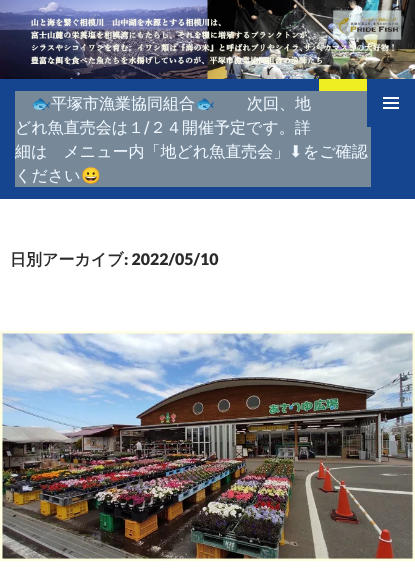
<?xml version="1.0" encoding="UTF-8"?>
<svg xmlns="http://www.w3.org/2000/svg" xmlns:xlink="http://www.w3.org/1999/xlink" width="415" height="588">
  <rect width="100%" height="100%" fill="#ffffff" />
  <image x="0" y="0" width="415" height="79" xlink:href="image1.png" />
  <rect y="79" width="415" height="120" fill="#15458e" />
  <rect x="319" y="79" width="48" height="12" fill="#eeee22" />
  <rect x="15" y="91" width="356" height="96" fill="#778899" />
  <rect x="367" y="91" width="4" height="36" fill="#15458e" />
  <image x="383" y="97" width="16" height="12" xlink:href="image2.png" />
  <image x="0" y="331" width="415" height="230" xlink:href="image3.png" />
  <text x="31" y="109" style="font-family: Noto Color Emoji; font-size: 16px; fill: #f0f8ff">🐟</text>
  <text x="51" y="109" style="font-family: WenQuanYi Zen Hei; font-size: 16px; font-weight: 500; fill: #f0f8ff">平塚市漁業協同組合</text>
  <text x="195" y="109" style="font-family: Noto Color Emoji; font-size: 16px; fill: #f0f8ff">🐟</text>
  <text x="247" y="109" style="font-family: WenQuanYi Zen Hei; font-size: 16px; font-weight: 500; fill: #f0f8ff">次回、地</text>
  <text x="15" y="133" style="font-family: WenQuanYi Zen Hei; font-size: 16px; font-weight: 500; fill: #f0f8ff">どれ魚直売会は１</text>
  <text x="144" y="133" style="font-family: DejaVu Sans; font-size: 16px; fill: #f0f8ff">/</text>
  <text x="150" y="133" style="font-family: WenQuanYi Zen Hei; font-size: 16px; font-weight: 500; fill: #f0f8ff">２４開催予定です。詳</text>
  <text x="15" y="157" style="font-family: WenQuanYi Zen Hei; font-size: 16px; font-weight: 500; fill: #f0f8ff">細は　メニュー内「地どれ魚直売会」</text>
  <text x="289" y="157" style="font-family: DejaVu Sans; font-size: 16px; fill: #f0f8ff">⬇</text>
  <text x="303" y="157" style="font-family: WenQuanYi Zen Hei; font-size: 16px; font-weight: 500; fill: #f0f8ff">をご確認</text>
  <text x="15" y="181" style="font-family: WenQuanYi Zen Hei; font-size: 16px; font-weight: 500; fill: #f0f8ff">ください</text>
  <text x="81" y="181" style="font-family: Noto Color Emoji; font-size: 16px; fill: #f0f8ff">😀</text>
  <text x="10" y="265" style="font-family: WenQuanYi Zen Hei; font-size: 16px; font-weight: bold; fill: #2b2b2b">日別アーカイブ</text>
  <text x="124" y="265" style="font-family: Lato; font-size: 16px; font-weight: 900; fill: #2b2b2b">: 2022/05/10</text>
</svg>
